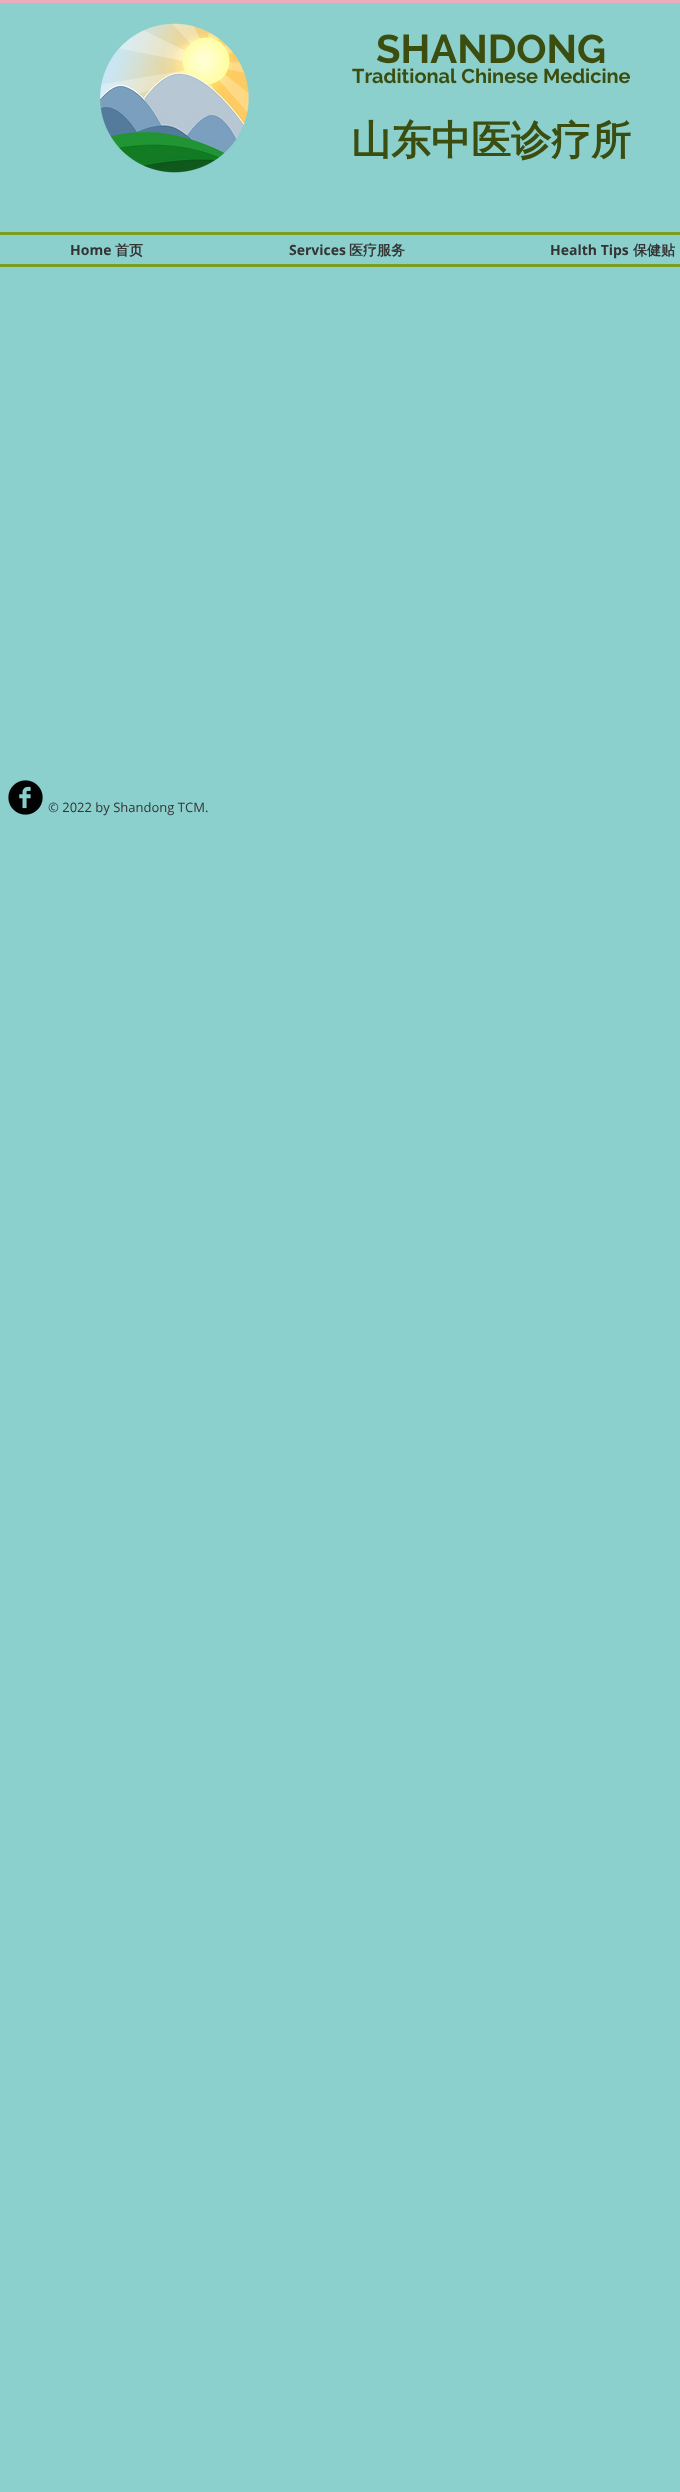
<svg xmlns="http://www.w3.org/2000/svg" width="680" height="2492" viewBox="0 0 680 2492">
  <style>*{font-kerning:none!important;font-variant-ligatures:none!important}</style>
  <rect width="100%" height="100%" fill="#8bd0cd"/>
  <path d="M0 0h680v3H0z" fill="#eaadbb"/>
  <image x="100" y="23" width="149" height="150" href="img/1.png"/>
  <path d="M0 232h680v3H0z" fill="#7a9e1e"/>
  <path d="M0 264h680v3H0z" fill="#7a9e1e"/>
  <image x="8" y="780" width="35" height="35" href="img/2.png"/>
  <text x="376" y="63" font-family="Raleway" font-size="40" font-weight="bold" fill="#3b4d0f">SHANDONG</text>
  <text x="352" y="83" font-family="Raleway" font-size="20" font-weight="bold" fill="#3b4d0f">Traditional Chinese Medicine</text>
  <text x="351" y="154" font-family="WenQuanYi Zen Hei" font-size="40" font-weight="bold" fill="#3b4d0f">山东中医诊疗所</text>
  <text x="70" y="255" font-family="Open Sans" font-size="14" font-weight="bold" fill="#343434">Home</text>
  <text x="115" y="255" font-family="WenQuanYi Zen Hei" font-size="14" font-weight="bold" fill="#343434">首页</text>
  <text x="289" y="255" font-family="Open Sans" font-size="14" font-weight="bold" fill="#343434">Services</text>
  <text x="349" y="255" font-family="WenQuanYi Zen Hei" font-size="14" font-weight="bold" fill="#343434">医疗服务</text>
  <text x="550" y="255" font-family="Open Sans" font-size="14" font-weight="bold" fill="#343434">Health Tips</text>
  <text x="633" y="255" font-family="WenQuanYi Zen Hei" font-size="14" font-weight="bold" fill="#343434">保健贴</text>
  <text x="48" y="812" font-family="Open Sans" font-size="13" fill="#343434">© 2022 by Shandong TCM.</text>
</svg>
